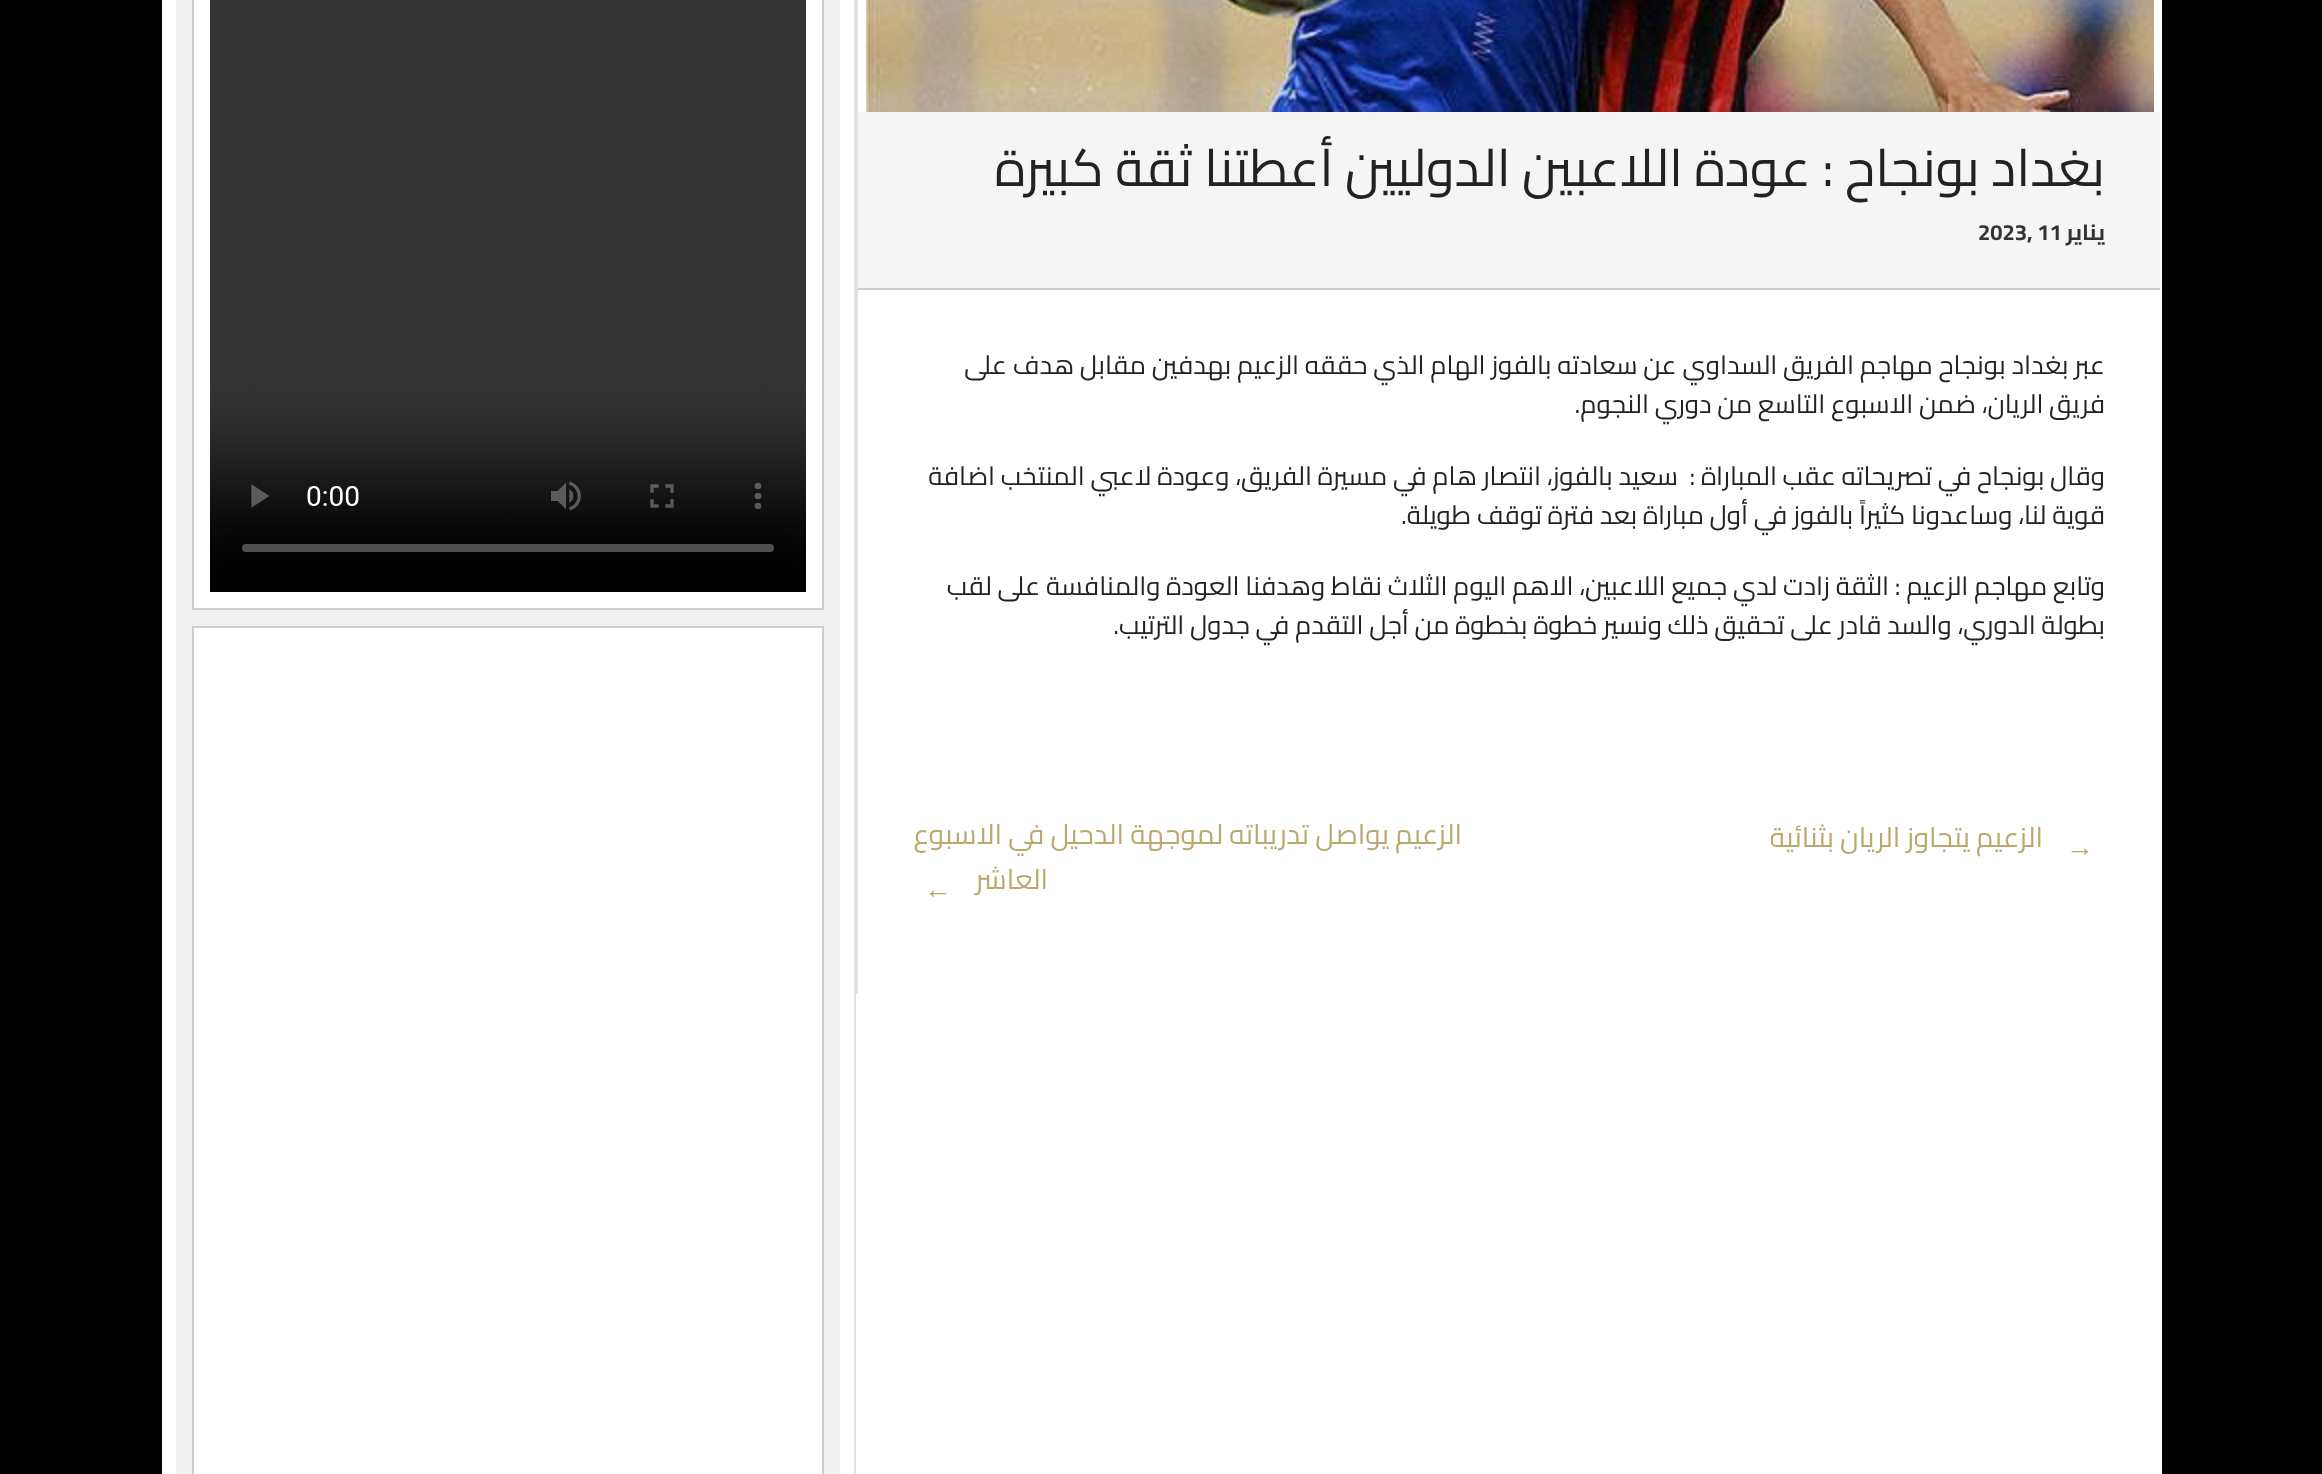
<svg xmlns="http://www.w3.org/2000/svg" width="2322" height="1474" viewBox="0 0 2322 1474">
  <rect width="100%" height="100%" fill="#000"/>
  <path d="M162 0h2000v1474H162z" fill="#fff"/>
  <path d="M856 0h2v994H856z" fill="#e0e0e0"/>
  <image x="866" y="0" width="1288" height="112" href="img/1.png"/>
  <path d="M858 112h1302v176H858z" fill="#f5f5f5"/>
  <path d="M858 288h1302v2H858z" fill="#ccc"/>
  <path d="M854 0h2v1474H854z" fill="#e0e0e0"/>
  <path d="M193 -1h630v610H193z" fill="none" stroke="#cdcdcd" stroke-width="2"/>
  <image x="210" y="0" width="596" height="592" href="img/2.png"/>
  <path d="M184 -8h648v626H184z" fill="none" stroke="#f0f0f0" stroke-width="16"/>
  <path d="M193 627h630v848H193z" fill="none" stroke="#cdcdcd" stroke-width="2"/>
  <path d="M184 618h648v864H184z" fill="none" stroke="#f0f0f0" stroke-width="16"/>
  <text x="2105" y="186" font-family="Cairo" font-size="52" direction="rtl" fill="#222">بغداد بونجاح : عودة اللاعبين الدوليين أعطتنا ثقة كبيرة</text>
  <text x="2105" y="240" font-family="Cairo" font-size="22" font-weight="bold" direction="rtl" fill="#333">يناير</text>
  <text x="1978" y="240" font-family="Cairo" font-size="22" font-weight="bold" fill="#333">2023, 11</text>
  <g font-family="Cairo" font-size="26" direction="rtl" fill="#222">
    <text x="2105" y="374">عبر بغداد بونجاح مهاجم الفريق السداوي عن سعادته بالفوز الهام الذي حققه الزعيم بهدفين مقابل هدف على</text>
    <text x="2105" y="413">فريق الريان، ضمن الاسبوع التاسع من دوري النجوم.</text>
    <text x="2105" y="485" xml:space="preserve">وقال بونجاح في تصريحاته عقب المباراة :  سعيد بالفوز، انتصار هام في مسيرة الفريق، وعودة لاعبي المنتخب اضافة</text>
    <text x="2105" y="524">قوية لنا، وساعدونا كثيراً بالفوز في أول مباراة بعد فترة توقف طويلة.</text>
    <text x="2105" y="595">وتابع مهاجم الزعيم : الثقة زادت لدي جميع اللاعبين، الاهم اليوم الثلاث نقاط وهدفنا العودة والمنافسة على لقب</text>
    <text x="2105" y="634">بطولة الدوري، والسد قادر على تحقيق ذلك ونسير خطوة بخطوة من أجل التقدم في جدول الترتيب.</text>
  </g>
  <text x="2094" y="847" transform="rotate(180 2094 847)" font-family="Liberation Serif" font-size="28" fill="#baa86d">←</text>
  <g font-family="Cairo" font-size="28" direction="rtl" fill="#baa86d">
    <text x="2043" y="847">الزعيم يتجاوز الريان بثنائية</text>
    <text x="1462" y="844">الزعيم يواصل تدريباته لموجهة الدحيل في الاسبوع</text>
    <text x="1048" y="889">العاشر</text>
  </g>
  <text x="952" y="889" transform="rotate(180 952 889)" font-family="Liberation Serif" font-size="28" fill="#baa86d">→</text>
</svg>
